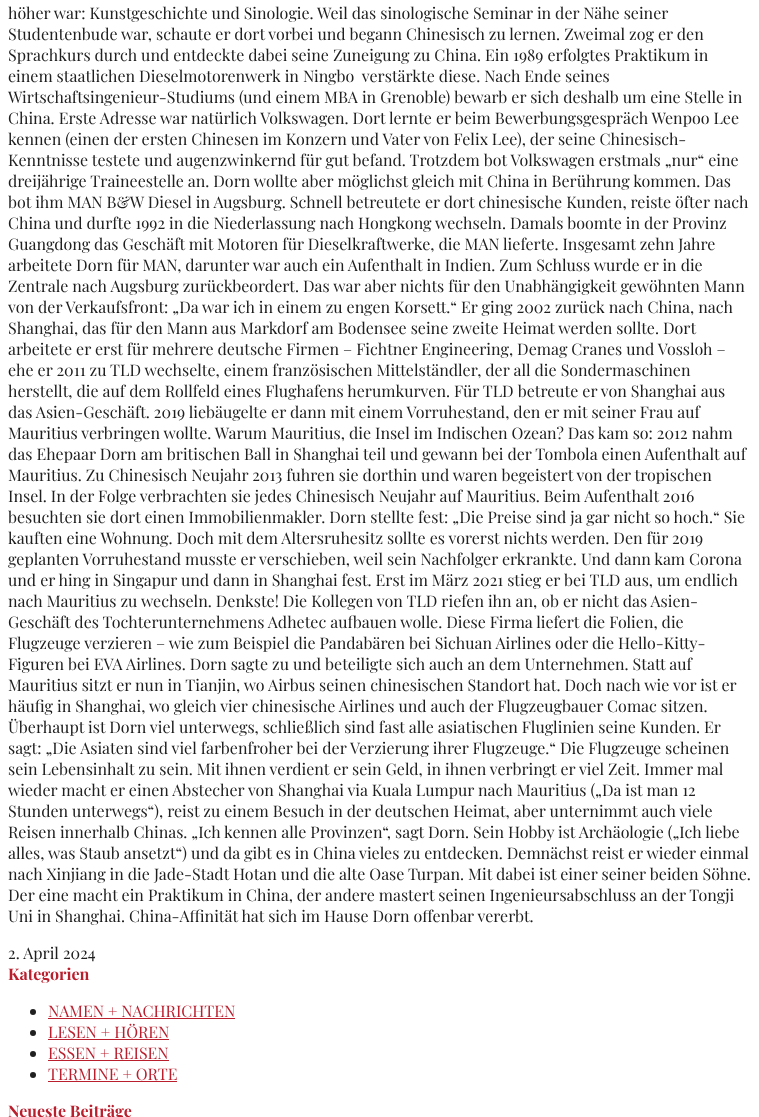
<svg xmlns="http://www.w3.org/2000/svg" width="759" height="1117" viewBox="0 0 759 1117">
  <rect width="100%" height="100%" fill="#fff"/>
  <circle cx="33" cy="1012" r="3" fill="#202020"/>
  <path d="M48 1018h187v1H48z" fill="#ba1f2e"/>
  <circle cx="33" cy="1033" r="3" fill="#202020"/>
  <path d="M48 1039h121v1H48z" fill="#ba1f2e"/>
  <circle cx="33" cy="1054" r="3" fill="#202020"/>
  <path d="M48 1060h121v1H48z" fill="#ba1f2e"/>
  <circle cx="33" cy="1075" r="3" fill="#202020"/>
  <path d="M48 1081h129v1H48z" fill="#ba1f2e"/>
  <g font-family="Playfair Display" font-size="16" fill="#202020">
    <text x="8" y="19">höher war: Kunstgeschichte und Sinologie. Weil das sinologische Seminar in der Nähe seiner</text>
    <text x="8" y="40">Studentenbude war, schaute er dort vorbei und begann Chinesisch zu lernen. Zweimal zog er den</text>
    <text x="8" y="61">Sprachkurs durch und entdeckte dabei seine Zuneigung zu China. Ein 1989 erfolgtes Praktikum in</text>
    <text x="8" y="82" xml:space="preserve">einem staatlichen Dieselmotorenwerk in Ningbo  verstärkte diese. Nach Ende seines</text>
    <text x="8" y="103">Wirtschaftsingenieur-Studiums (und einem MBA in Grenoble) bewarb er sich deshalb um eine Stelle in</text>
    <text x="8" y="124">China. Erste Adresse war natürlich Volkswagen. Dort lernte er beim Bewerbungsgespräch Wenpoo Lee</text>
    <text x="8" y="145">kennen (einen der ersten Chinesen im Konzern und Vater von Felix Lee), der seine Chinesisch-</text>
    <text x="8" y="166">Kenntnisse testete und augenzwinkernd für gut befand. Trotzdem bot Volkswagen erstmals „nur“ eine</text>
    <text x="8" y="187">dreijährige Traineestelle an. Dorn wollte aber möglichst gleich mit China in Berührung kommen. Das</text>
    <text x="8" y="208">bot ihm MAN B&amp;W Diesel in Augsburg. Schnell betreutete er dort chinesische Kunden, reiste öfter nach</text>
    <text x="8" y="229">China und durfte 1992 in die Niederlassung nach Hongkong wechseln. Damals boomte in der Provinz</text>
    <text x="8" y="250">Guangdong das Geschäft mit Motoren für Dieselkraftwerke, die MAN lieferte. Insgesamt zehn Jahre</text>
    <text x="8" y="271">arbeitete Dorn für MAN, darunter war auch ein Aufenthalt in Indien. Zum Schluss wurde er in die</text>
    <text x="8" y="292">Zentrale nach Augsburg zurückbeordert. Das war aber nichts für den Unabhängigkeit gewöhnten Mann</text>
    <text x="8" y="313">von der Verkaufsfront: „Da war ich in einem zu engen Korsett.“ Er ging 2002 zurück nach China, nach</text>
    <text x="8" y="334">Shanghai, das für den Mann aus Markdorf am Bodensee seine zweite Heimat werden sollte. Dort</text>
    <text x="8" y="355">arbeitete er erst für mehrere deutsche Firmen – Fichtner Engineering, Demag Cranes und Vossloh –</text>
    <text x="8" y="376">ehe er 2011 zu TLD wechselte, einem französischen Mittelständler, der all die Sondermaschinen</text>
    <text x="8" y="397">herstellt, die auf dem Rollfeld eines Flughafens herumkurven. Für TLD betreute er von Shanghai aus</text>
    <text x="8" y="418">das Asien-Geschäft. 2019 liebäugelte er dann mit einem Vorruhestand, den er mit seiner Frau auf</text>
    <text x="8" y="439">Mauritius verbringen wollte. Warum Mauritius, die Insel im Indischen Ozean? Das kam so: 2012 nahm</text>
    <text x="8" y="460">das Ehepaar Dorn am britischen Ball in Shanghai teil und gewann bei der Tombola einen Aufenthalt auf</text>
    <text x="8" y="481">Mauritius. Zu Chinesisch Neujahr 2013 fuhren sie dorthin und waren begeistert von der tropischen</text>
    <text x="8" y="502">Insel. In der Folge verbrachten sie jedes Chinesisch Neujahr auf Mauritius. Beim Aufenthalt 2016</text>
    <text x="8" y="523">besuchten sie dort einen Immobilienmakler. Dorn stellte fest: „Die Preise sind ja gar nicht so hoch.“ Sie</text>
    <text x="8" y="544">kauften eine Wohnung. Doch mit dem Altersruhesitz sollte es vorerst nichts werden. Den für 2019</text>
    <text x="8" y="565">geplanten Vorruhestand musste er verschieben, weil sein Nachfolger erkrankte. Und dann kam Corona</text>
    <text x="8" y="586">und er hing in Singapur und dann in Shanghai fest. Erst im März 2021 stieg er bei TLD aus, um endlich</text>
    <text x="8" y="607">nach Mauritius zu wechseln. Denkste! Die Kollegen von TLD riefen ihn an, ob er nicht das Asien-</text>
    <text x="8" y="628">Geschäft des Tochterunternehmens Adhetec aufbauen wolle. Diese Firma liefert die Folien, die</text>
    <text x="8" y="649">Flugzeuge verzieren – wie zum Beispiel die Pandabären bei Sichuan Airlines oder die Hello-Kitty-</text>
    <text x="8" y="670">Figuren bei EVA Airlines. Dorn sagte zu und beteiligte sich auch an dem Unternehmen. Statt auf</text>
    <text x="8" y="691">Mauritius sitzt er nun in Tianjin, wo Airbus seinen chinesischen Standort hat. Doch nach wie vor ist er</text>
    <text x="8" y="712">häufig in Shanghai, wo gleich vier chinesische Airlines und auch der Flugzeugbauer Comac sitzen.</text>
    <text x="8" y="733">Überhaupt ist Dorn viel unterwegs, schließlich sind fast alle asiatischen Fluglinien seine Kunden. Er</text>
    <text x="8" y="754">sagt: „Die Asiaten sind viel farbenfroher bei der Verzierung ihrer Flugzeuge.“ Die Flugzeuge scheinen</text>
    <text x="8" y="775">sein Lebensinhalt zu sein. Mit ihnen verdient er sein Geld, in ihnen verbringt er viel Zeit. Immer mal</text>
    <text x="8" y="796">wieder macht er einen Abstecher von Shanghai via Kuala Lumpur nach Mauritius („Da ist man 12</text>
    <text x="8" y="817">Stunden unterwegs“), reist zu einem Besuch in der deutschen Heimat, aber unternimmt auch viele</text>
    <text x="8" y="838">Reisen innerhalb Chinas. „Ich kennen alle Provinzen“, sagt Dorn. Sein Hobby ist Archäologie („Ich liebe</text>
    <text x="8" y="859">alles, was Staub ansetzt“) und da gibt es in China vieles zu entdecken. Demnächst reist er wieder einmal</text>
    <text x="8" y="880">nach Xinjiang in die Jade-Stadt Hotan und die alte Oase Turpan. Mit dabei ist einer seiner beiden Söhne.</text>
    <text x="8" y="901">Der eine macht ein Praktikum in China, der andere mastert seinen Ingenieursabschluss an der Tongji</text>
    <text x="8" y="922">Uni in Shanghai. China-Affinität hat sich im Hause Dorn offenbar vererbt.</text>
    <text x="8" y="959">2. April 2024</text>
  </g>
  <text x="8" y="980" font-family="Playfair Display" font-size="16" font-weight="bold" fill="#ba1f2e">Kategorien</text>
  <g font-family="Playfair Display" font-size="16" fill="#ba1f2e">
    <text x="48" y="1017">NAMEN + NACHRICHTEN</text>
    <text x="48" y="1038">LESEN + HÖREN</text>
    <text x="48" y="1059">ESSEN + REISEN</text>
    <text x="48" y="1080">TERMINE + ORTE</text>
  </g>
  <text x="8" y="1117" font-family="Playfair Display" font-size="16" font-weight="bold" fill="#ba1f2e">Neueste Beiträge</text>
</svg>
